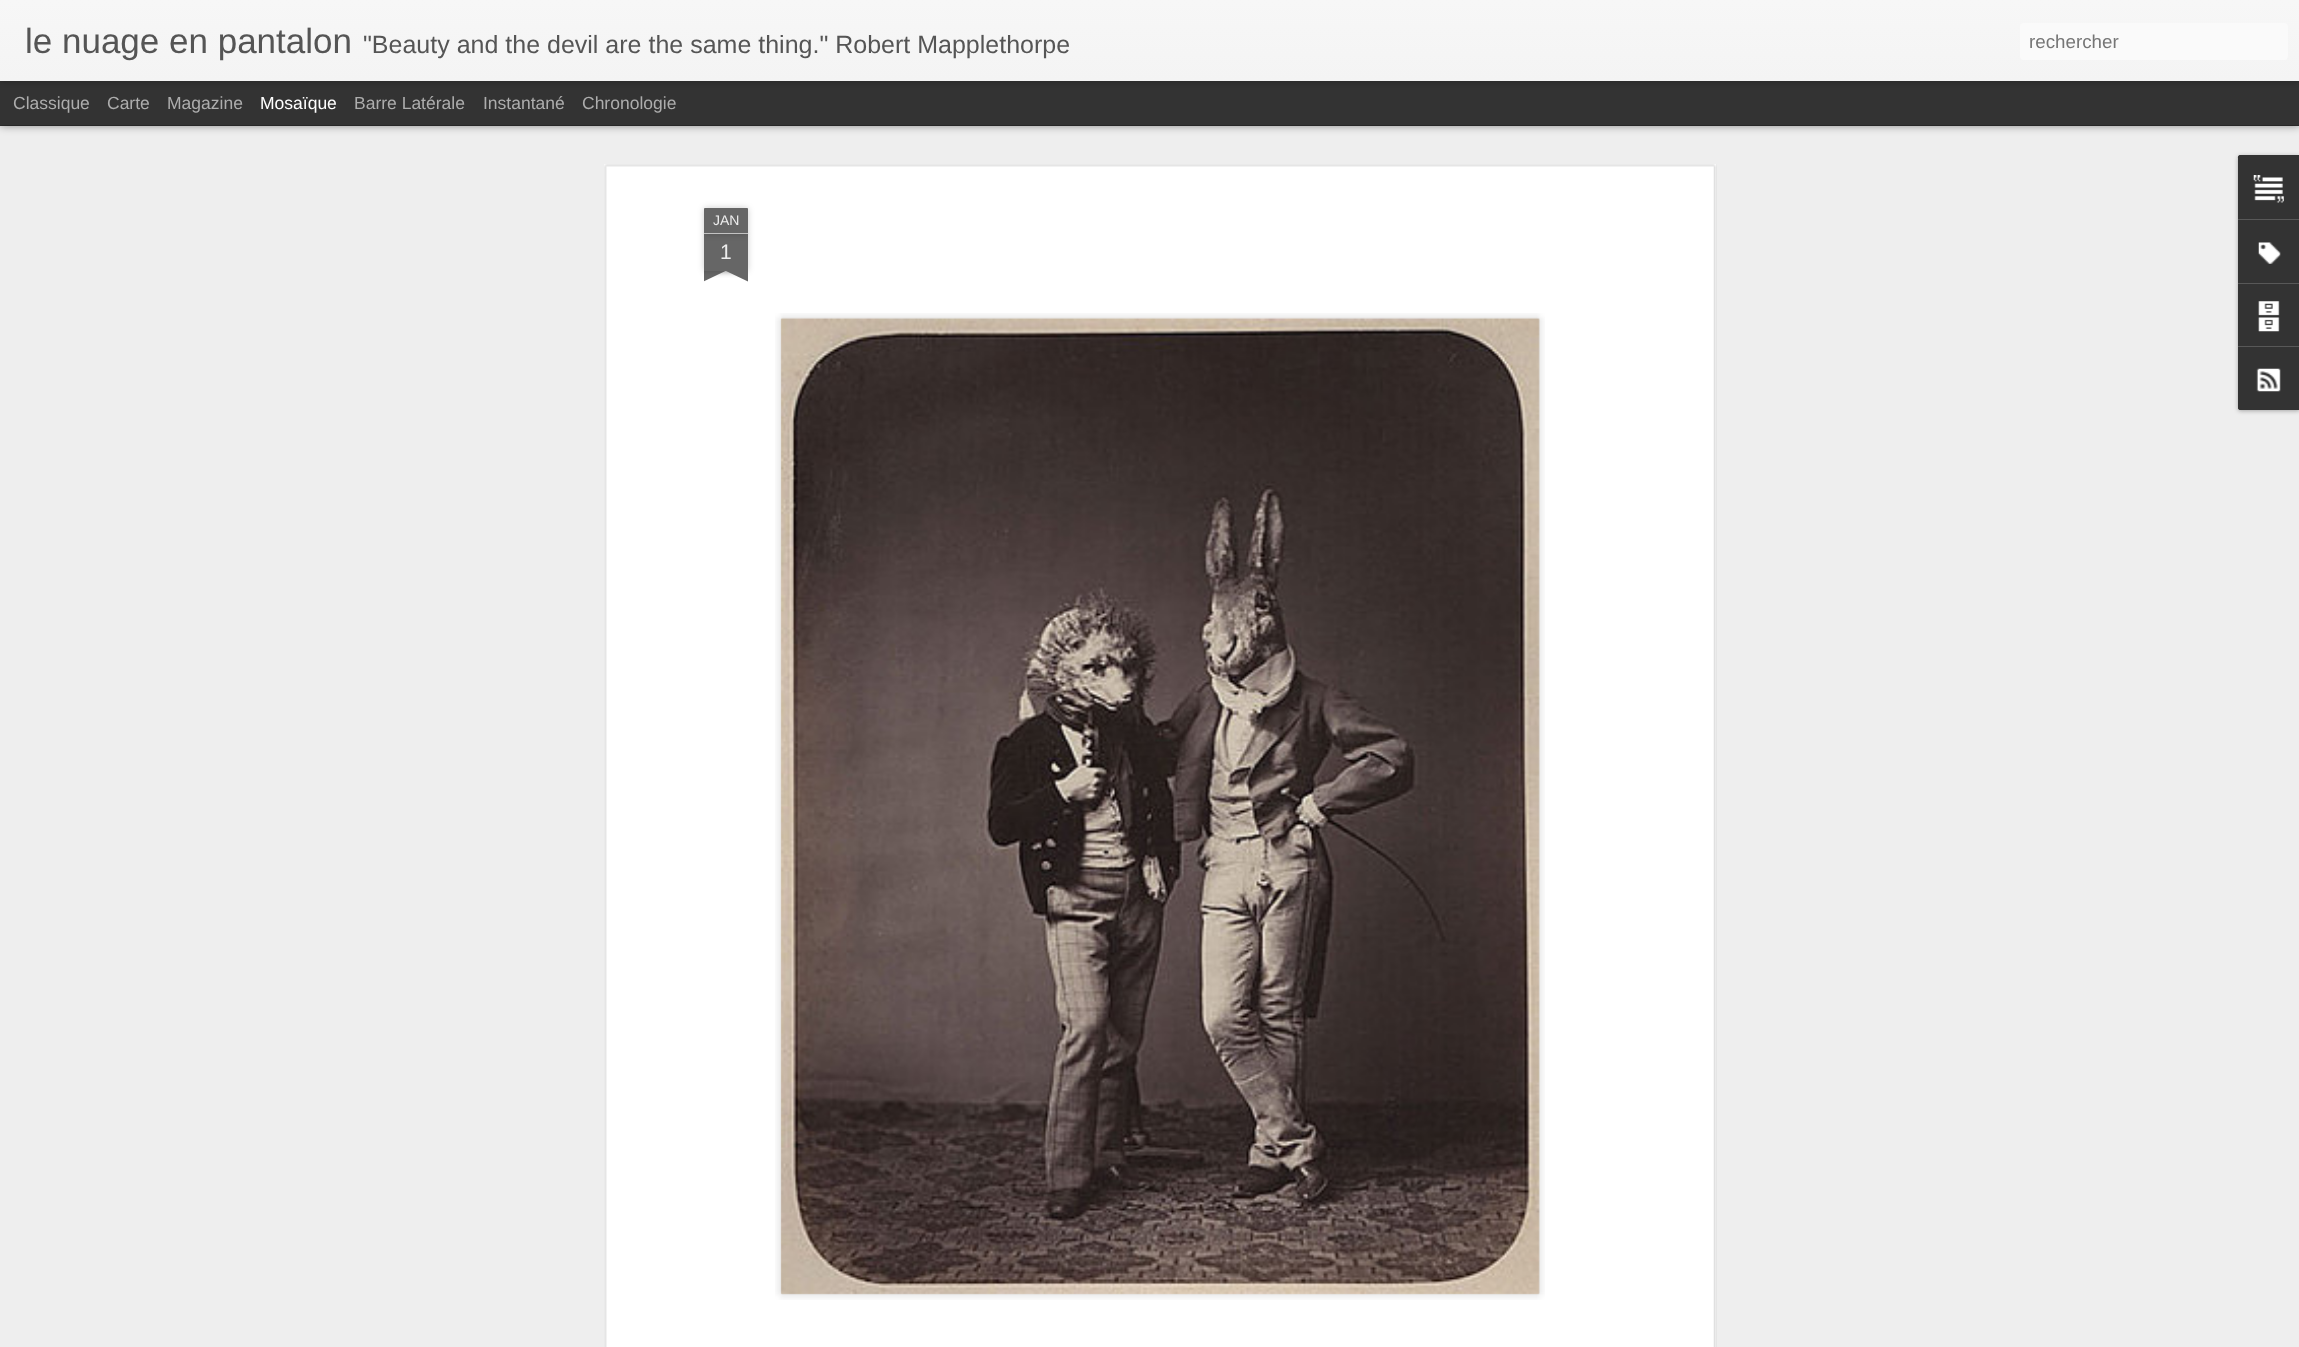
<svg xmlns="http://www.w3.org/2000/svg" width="2299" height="1347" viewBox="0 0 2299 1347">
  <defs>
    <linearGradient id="g1" gradientUnits="userSpaceOnUse" x1="0" y1="0" x2="0" y2="81"><stop offset="0" stop-color="#f7f7f7"/><stop offset="1" stop-color="#f4f4f4"/></linearGradient>
    <clipPath id="clip1"><path d="M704 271h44v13H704z"/></clipPath>
    <clipPath id="clip2"><path d="M704 271h44v13H704z"/></clipPath>
  </defs>
  <rect width="100%" height="100%" fill="#333"/>
  <path d="M0 126h2299v1221H0z" fill="#eee"/>
  <path d="M0 81h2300v44H0z" fill="#00000080" filter="blur(5px)"/>
  <path d="M0 81h2299v44H0z" fill="#333"/>
  <path d="M0 0h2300v81H0z" fill="#0000004d" filter="blur(3px)"/>
  <path d="M0 0h2299v81H0z" fill="url(#g1)"/>
  <rect x="2020" y="23" width="268" height="37" rx="4" fill="#fafafa"/>
  <path d="M604 164h1112v1183H604z" fill="#fff"/>
  <image x="604" y="164" width="1113" height="1183" href="img/1.png"/>
  <path d="M704 234h44v37H704z" fill="#00000033" filter="blur(3px)"/>
  <path d="M704 234h44v37H704z" fill="#666"/>
  <rect x="704" y="208" width="44" height="26" rx="1" fill="#00000033" filter="blur(3px)"/>
  <path d="M705 208H747C747.5 208 748 208.5 748 209V234H704V209C704 208.5 704.5 208 705 208Z" fill="#666"/>
  <path d="M704 233h44v1H704z" fill="#c2c2c2"/>
  <g clip-path="url(#clip1)">
    <path d="M693 259h62v12H693z" fill="#00000033" filter="blur(3px)"/>
  </g>
  <g clip-path="url(#clip2)">
    <path d="M693 273L749 246L755 257L698 284Z" fill="#666"/>
  </g>
  <g clip-path="url(#clip1)">
    <path d="M696 259h63v12H696z" fill="#00000033" filter="blur(3px)"/>
  </g>
  <g clip-path="url(#clip2)">
    <path d="M702 246L758 273L753 284L697 257Z" fill="#666"/>
  </g>
  <image x="775" y="313" width="770" height="987" href="img/2.png"/>
  <image x="780" y="317" width="760" height="978" href="img/3.png"/>
  <rect x="2238" y="156" width="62" height="255" rx="2.5" fill="#0000004d" filter="blur(2px)"/>
  <path d="M2240.5 155H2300V410H2240.5C2239 410 2238 409 2238 407.5V157.5C2238 156 2239 155 2240.5 155Z" fill="#333"/>
  <path d="M2240.5 155H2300V219H2238V157.5C2238 156 2239 155 2240.5 155Z" fill="#333"/>
  <image x="2253" y="175" width="31" height="28" href="img/4.png"/>
  <path d="M2238 219h61v1H2238z" fill="#585858"/>
  <image x="2258" y="242" width="23" height="22" href="img/5.png"/>
  <path d="M2238 283h61v1H2238z" fill="#585858"/>
  <image x="2258" y="301" width="22" height="31" href="img/6.png"/>
  <path d="M2238 346H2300V410H2240.5C2239 410 2238 409 2238 407.5Z" fill="#333"/>
  <path d="M2238 346h61v1H2238z" fill="#585858"/>
  <image x="2256" y="368" width="25" height="24" href="img/7.png"/>
  <text x="25" y="53" font-family="Liberation Sans" font-size="35" fill="#555">le nuage en pantalon</text>
  <text x="363" y="53" font-family="Liberation Sans" font-size="25" fill="#555">"Beauty and the devil are the same thing." Robert Mapplethorpe</text>
  <text x="2029" y="48" font-family="Liberation Sans" font-size="18.75" fill="#757575">rechercher</text>
  <g font-family="Liberation Sans" font-size="17.5" fill="#adadad">
    <text x="13" y="109">Classique</text>
    <text x="107" y="109">Carte</text>
    <text x="167" y="109">Magazine</text>
  </g>
  <text x="260" y="109" font-family="Liberation Sans" font-size="17.5" fill="#fff">Mosaïque</text>
  <g font-family="Liberation Sans" font-size="17.5" fill="#adadad">
    <text x="354" y="109">Barre Latérale</text>
    <text x="483" y="109">Instantané</text>
    <text x="582" y="109">Chronologie</text>
  </g>
  <text x="713" y="225" font-family="Liberation Sans" font-size="14" fill="#eee">JAN</text>
  <text x="720" y="259" font-family="Liberation Sans" font-size="21" fill="#eee">1</text>
</svg>
